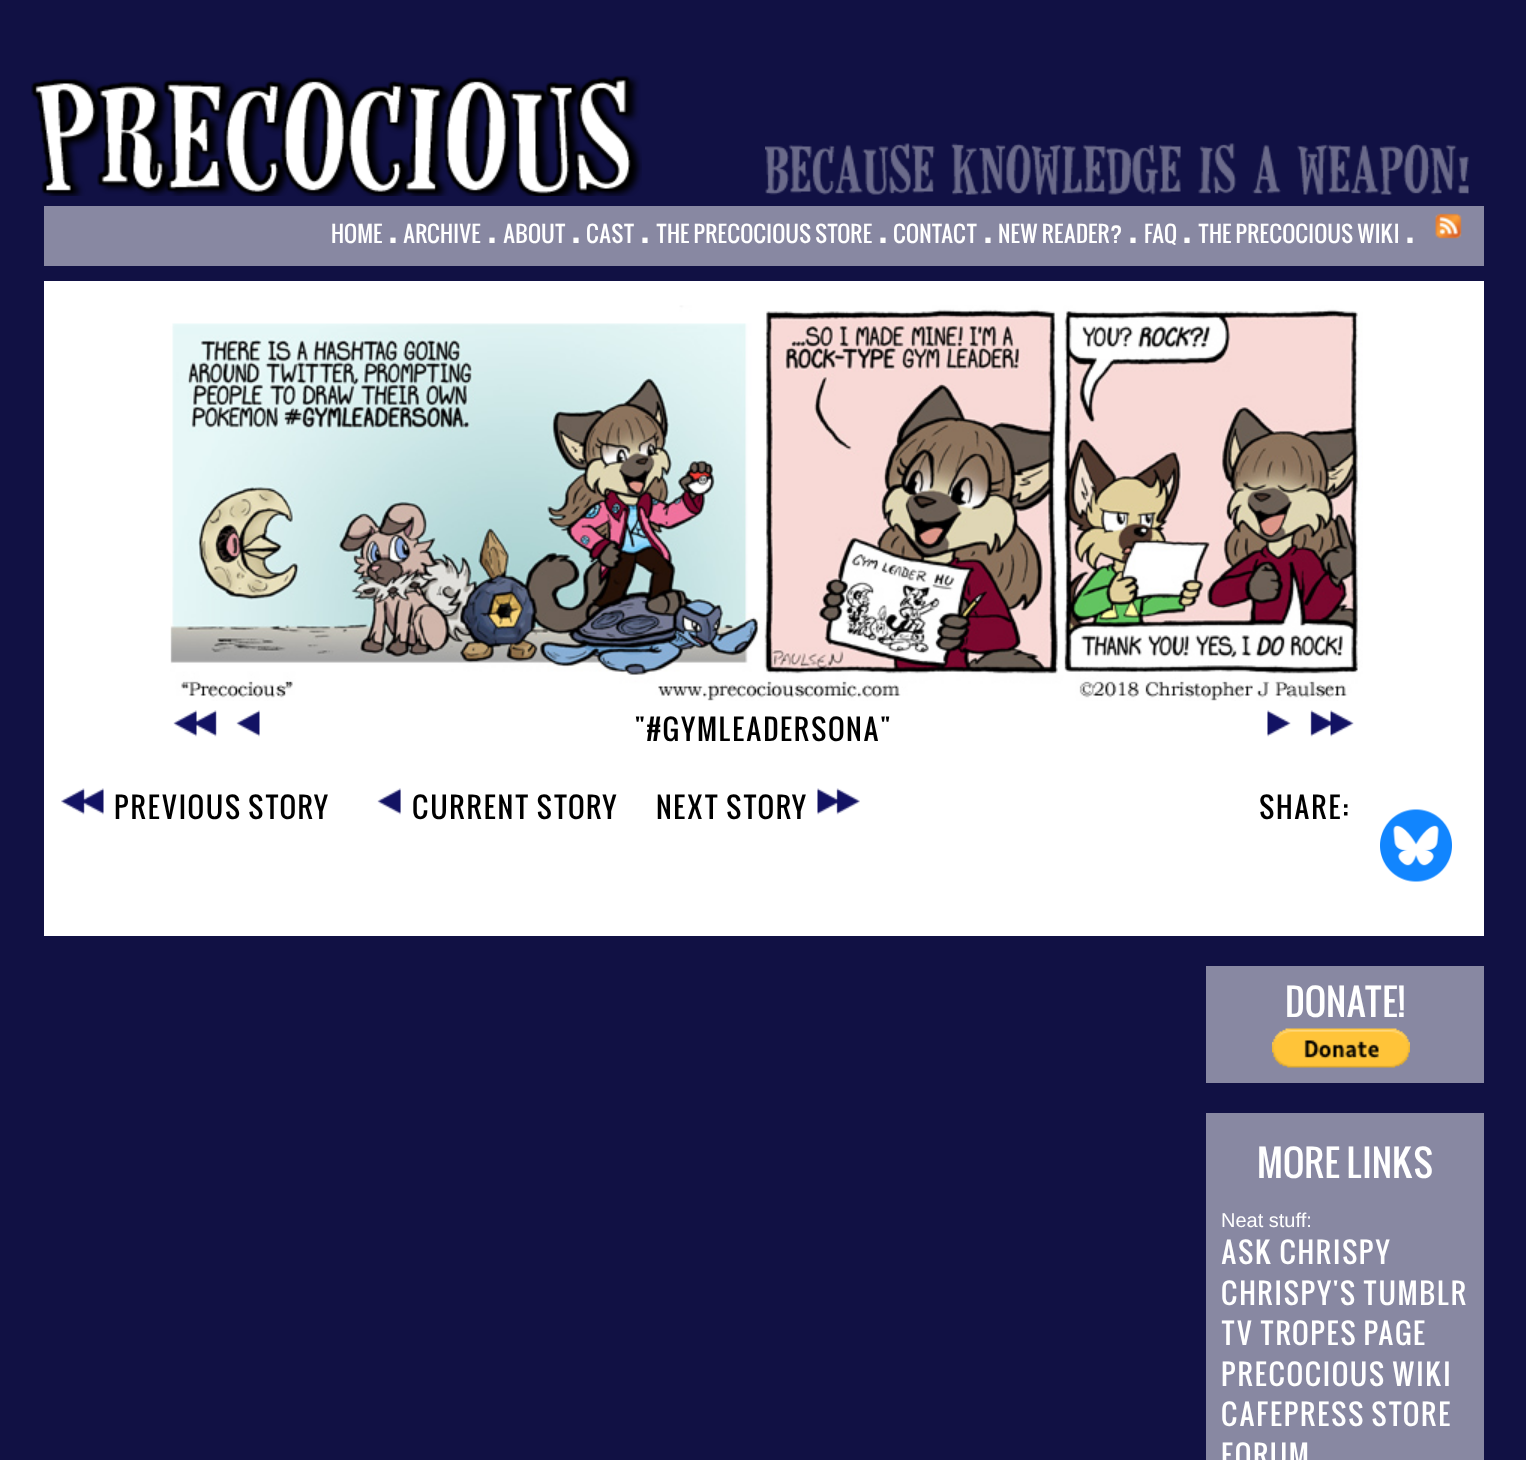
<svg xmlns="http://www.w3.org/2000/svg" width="1526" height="1460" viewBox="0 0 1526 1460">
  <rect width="100%" height="100%" fill="#114"/>
  <image x="31" y="75" width="611" height="121" href="img/1.png"/>
  <image x="765" y="143" width="704" height="52" href="img/2.png"/>
  <path d="M44 206h1440v60H44z" fill="#8888a2"/>
  <image x="1435" y="213" width="27" height="26" href="img/3.png"/>
  <path d="M44 281h1440v655H44z" fill="#fff"/>
  <image x="170" y="305" width="1193" height="396" href="img/4.png"/>
  <image x="173" y="710" width="44" height="27" href="img/5.png"/>
  <image x="236" y="710" width="24" height="27" href="img/6.png"/>
  <image x="1267" y="710" width="24" height="27" href="img/7.png"/>
  <image x="1310" y="710" width="44" height="27" href="img/8.png"/>
  <image x="61" y="788" width="43" height="27" href="img/9.png"/>
  <image x="377" y="788" width="24" height="27" href="img/10.png"/>
  <image x="817" y="788" width="43" height="27" href="img/11.png"/>
  <image x="1380" y="809" width="72" height="73" href="img/12.png"/>
  <path d="M1206 966h278v117H1206z" fill="#8888a2"/>
  <image x="1272" y="1028" width="138" height="40" href="img/13.png"/>
  <path d="M1206 1113h278v347H1206z" fill="#8888a2"/>
  <text x="331" y="243" font-family="Oswald" font-size="22" fill="#fff">HOME</text>
  <text x="388" y="243" font-family="Liberation Sans" font-size="36" font-weight="bold" fill="#fff">.</text>
  <text x="403" y="243" font-family="Oswald" font-size="22" fill="#fff">ARCHIVE</text>
  <text x="487" y="243" font-family="Liberation Sans" font-size="36" font-weight="bold" fill="#fff">.</text>
  <text x="503" y="243" font-family="Oswald" font-size="22" fill="#fff">ABOUT</text>
  <text x="571" y="243" font-family="Liberation Sans" font-size="36" font-weight="bold" fill="#fff">.</text>
  <text x="586" y="243" font-family="Oswald" font-size="22" fill="#fff">CAST</text>
  <text x="640" y="243" font-family="Liberation Sans" font-size="36" font-weight="bold" fill="#fff">.</text>
  <text x="656" y="243" font-family="Oswald" font-size="22" fill="#fff">THE PRECOCIOUS STORE</text>
  <text x="878" y="243" font-family="Liberation Sans" font-size="36" font-weight="bold" fill="#fff">.</text>
  <text x="893" y="243" font-family="Oswald" font-size="22" fill="#fff">CONTACT</text>
  <text x="983" y="243" font-family="Liberation Sans" font-size="36" font-weight="bold" fill="#fff">.</text>
  <text x="998" y="243" font-family="Oswald" font-size="22" fill="#fff">NEW READER?</text>
  <text x="1128" y="243" font-family="Liberation Sans" font-size="36" font-weight="bold" fill="#fff">.</text>
  <text x="1144" y="243" font-family="Oswald" font-size="22" fill="#fff">FAQ</text>
  <text x="1182" y="243" font-family="Liberation Sans" font-size="36" font-weight="bold" fill="#fff">.</text>
  <text x="1198" y="243" font-family="Oswald" font-size="22" fill="#fff">THE PRECOCIOUS WIKI</text>
  <text x="1405" y="243" font-family="Liberation Sans" font-size="36" font-weight="bold" fill="#fff">.</text>
  <g font-family="Oswald" font-size="28" letter-spacing="1.5" fill="#000">
    <text x="635" y="741">"#GYMLEADERSONA"</text>
    <text x="114" y="819">PREVIOUS STORY</text>
    <text x="412" y="819">CURRENT STORY</text>
    <text x="656" y="819">NEXT STORY</text>
    <text x="1259" y="819">SHARE:</text>
  </g>
  <g font-family="Oswald" font-size="36" fill="#fff">
    <text x="1285" y="1017">DONATE!</text>
    <text x="1257" y="1178">MORE LINKS</text>
  </g>
  <text x="1221" y="1227" font-family="Liberation Sans" font-size="20" fill="#fff">Neat stuff:</text>
  <g font-family="Oswald" font-size="28" letter-spacing="1.5" fill="#fff">
    <text x="1221" y="1264">ASK CHRISPY</text>
    <text x="1221" y="1305">CHRISPY'S TUMBLR</text>
    <text x="1221" y="1345">TV TROPES PAGE</text>
    <text x="1221" y="1386">PRECOCIOUS WIKI</text>
    <text x="1221" y="1426">CAFEPRESS STORE</text>
    <text x="1221" y="1467">FORUM</text>
  </g>
</svg>
